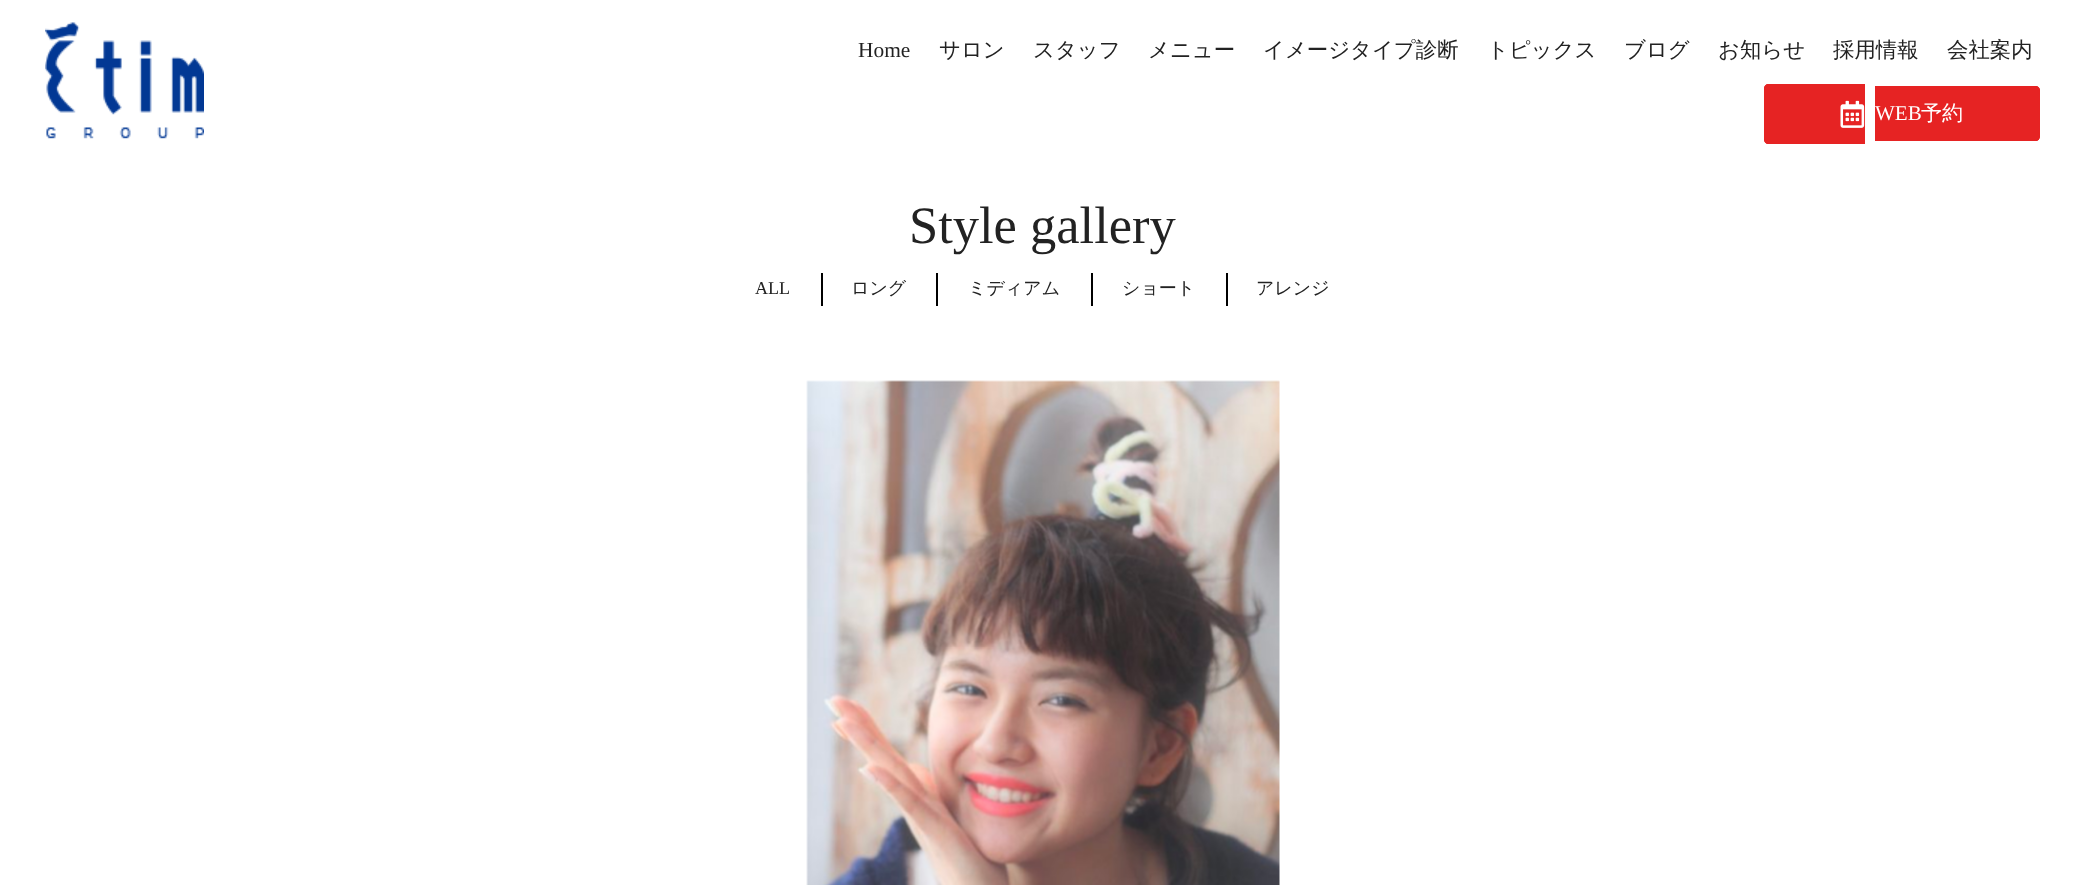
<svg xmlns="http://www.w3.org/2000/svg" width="2084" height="885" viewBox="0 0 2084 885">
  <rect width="100%" height="100%" fill="#fff"/>
  <image x="45" y="22" width="159" height="117" href="img/1.png"/>
  <path d="M1769 84H1865V144H1769C1766 144 1764 142 1764 139V89C1764 86 1766 84 1769 84Z" fill="#e62323"/>
  <path d="M1768 84H1864V144H1768C1766 144 1764 142 1764 140V88C1764 86 1766 84 1768 84ZM1768 86H1864V142H1768C1767 142 1766 141 1766 140V88C1766 87 1767 86 1768 86Z" fill="#e62323" fill-rule="evenodd"/>
  <path d="M1875 86H2035C2038 86 2040 88 2040 91V136C2040 139 2038 141 2035 141H1875Z" fill="#e62323"/>
  <path d="M1875 86H2036C2038 86 2040 88 2040 90V136C2040 139 2038 141 2036 141H1875ZM1875 87H2036C2037 87 2038 88 2038 90V136C2038 138 2037 140 2036 140H1875Z" fill="#e62323" fill-rule="evenodd"/>
  <image x="1840" y="100" width="25" height="28" href="img/2.png"/>
  <path d="M821 273h2v33H821z" fill="#000"/>
  <path d="M936 273h2v33H936z" fill="#000"/>
  <path d="M1091 273h2v33H1091z" fill="#000"/>
  <path d="M1226 273h2v33H1226z" fill="#000"/>
  <image x="806" y="380" width="474" height="505" href="img/3.png"/>
  <text x="858" y="57" font-family="Liberation Serif" font-size="21.4" fill="#222">Home</text>
  <g font-family="WenQuanYi Zen Hei" font-size="21.4" font-weight="500" fill="#222">
    <text x="939" y="57">サロン</text>
    <text x="1033" y="57">スタッフ</text>
    <text x="1148" y="57">メニュー</text>
    <text x="1263" y="57">イメージタイプ診断</text>
    <text x="1487" y="57">トピックス</text>
    <text x="1624" y="57">ブログ</text>
    <text x="1718" y="57">お知らせ</text>
    <text x="1833" y="57">採用情報</text>
    <text x="1947" y="57">会社案内</text>
  </g>
  <text x="1875" y="120" font-family="Liberation Serif" font-size="21" fill="#fff">WEB</text>
  <text x="1921" y="120" font-family="WenQuanYi Zen Hei" font-size="21" font-weight="500" fill="#fff">予約</text>
  <text x="909" y="243" font-family="Liberation Serif" font-size="52.5" fill="#222">Style gallery</text>
  <text x="755" y="294" font-family="Liberation Serif" font-size="18" fill="#222">ALL</text>
  <g font-family="WenQuanYi Zen Hei" font-size="18" font-weight="500" fill="#222">
    <text x="851" y="294">ロング</text>
    <text x="968" y="294">ミディアム</text>
    <text x="1122" y="294">ショート</text>
    <text x="1256" y="294">アレンジ</text>
  </g>
</svg>
